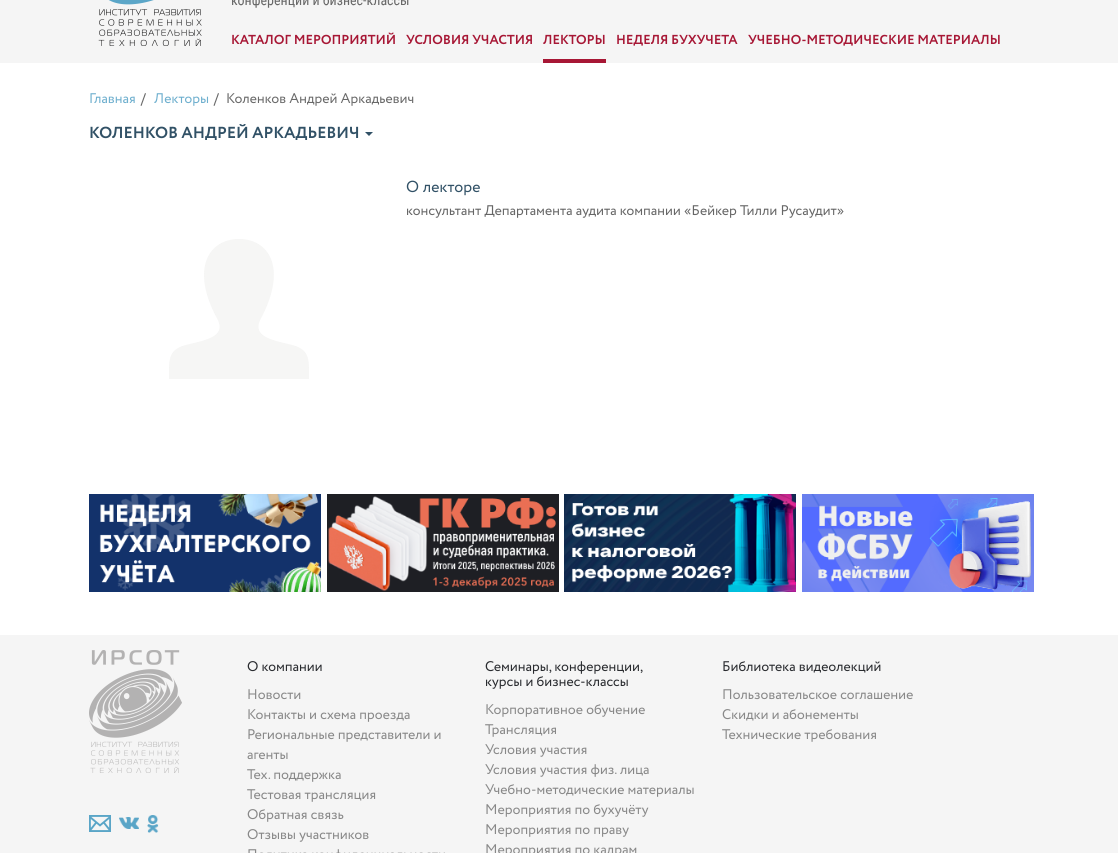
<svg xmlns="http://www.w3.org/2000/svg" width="1118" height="853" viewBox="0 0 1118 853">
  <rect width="100%" height="100%" fill="#fff"/>
  <path d="M0 0h1118v63H0z" fill="#f5f5f5"/>
  <image x="98" y="0" width="104" height="46" href="img/1.png"/>
  <image x="232" y="32" width="163" height="13" href="img/2.png"/>
  <image x="406" y="34" width="126" height="11" href="img/3.png"/>
  <path d="M543 59h63v4H543z" fill="#a71735"/>
  <image x="543" y="34" width="62" height="11" href="img/4.png"/>
  <image x="617" y="34" width="121" height="12" href="img/5.png"/>
  <image x="748" y="34" width="252" height="12" href="img/6.png"/>
  <image x="90" y="93" width="45" height="11" href="img/7.png"/>
  <path d="M140.5 105.5L141.5 106L146 93.5L145 93Z" fill="#696969"/>
  <image x="154" y="93" width="55" height="13" href="img/8.png"/>
  <path d="M213.5 105.5L214.5 106L219 93.5L218 93Z" fill="#696969"/>
  <image x="227" y="93" width="187" height="13" href="img/9.png"/>
  <image x="90" y="124" width="269" height="16" href="img/10.png"/>
  <path d="M365 132H373L369 136Z" fill="#315166"/>
  <image x="406" y="180" width="74" height="16" href="img/11.png"/>
  <image x="407" y="205" width="437" height="13" href="img/12.png"/>
  <image x="169" y="239" width="140" height="140" href="img/13.png"/>
  <image x="89" y="494" width="232" height="98" href="img/14.png"/>
  <image x="327" y="494" width="232" height="98" href="img/15.png"/>
  <image x="564" y="494" width="232" height="98" href="img/16.png"/>
  <image x="802" y="494" width="232" height="98" href="img/17.png"/>
  <path d="M0 635h1118v218H0z" fill="#f5f5f5"/>
  <image x="89" y="650" width="93" height="123" href="img/18.png"/>
  <image x="89" y="815" width="22" height="17" href="img/19.png"/>
  <image x="119" y="817" width="20" height="12" href="img/20.png"/>
  <image x="147" y="815" width="12" height="18" href="img/21.png"/>
  <image x="247" y="661" width="75" height="11" href="img/22.png"/>
  <image x="248" y="689" width="53" height="11" href="img/23.png"/>
  <image x="248" y="709" width="162" height="13" href="img/24.png"/>
  <image x="248" y="729" width="193" height="13" href="img/25.png"/>
  <image x="247" y="752" width="41" height="8" href="img/26.png"/>
  <image x="247" y="769" width="94" height="13" href="img/27.png"/>
  <image x="247" y="789" width="129" height="13" href="img/28.png"/>
  <image x="247" y="809" width="97" height="13" href="img/29.png"/>
  <image x="247" y="829" width="122" height="13" href="img/30.png"/>
  <image x="248" y="849" width="197" height="4" href="img/31.png"/>
  <image x="485" y="661" width="158" height="13" href="img/32.png"/>
  <image x="486" y="676" width="142" height="13" href="img/33.png"/>
  <image x="486" y="704" width="159" height="13" href="img/34.png"/>
  <image x="485" y="724" width="71" height="13" href="img/35.png"/>
  <image x="485" y="744" width="102" height="13" href="img/36.png"/>
  <image x="485" y="764" width="164" height="13" href="img/37.png"/>
  <image x="485" y="784" width="209" height="13" href="img/38.png"/>
  <image x="486" y="804" width="163" height="13" href="img/39.png"/>
  <image x="486" y="824" width="143" height="13" href="img/40.png"/>
  <image x="486" y="844" width="151" height="9" href="img/41.png"/>
  <image x="723" y="661" width="158" height="12" href="img/42.png"/>
  <image x="723" y="689" width="190" height="11" href="img/43.png"/>
  <image x="722" y="709" width="136" height="12" href="img/44.png"/>
  <image x="722" y="729" width="154" height="13" href="img/45.png"/>
  <text x="231" y="5" font-family="Roboto Condensed" font-size="14" fill="#696969">конференции и бизнес-классы</text>
</svg>
